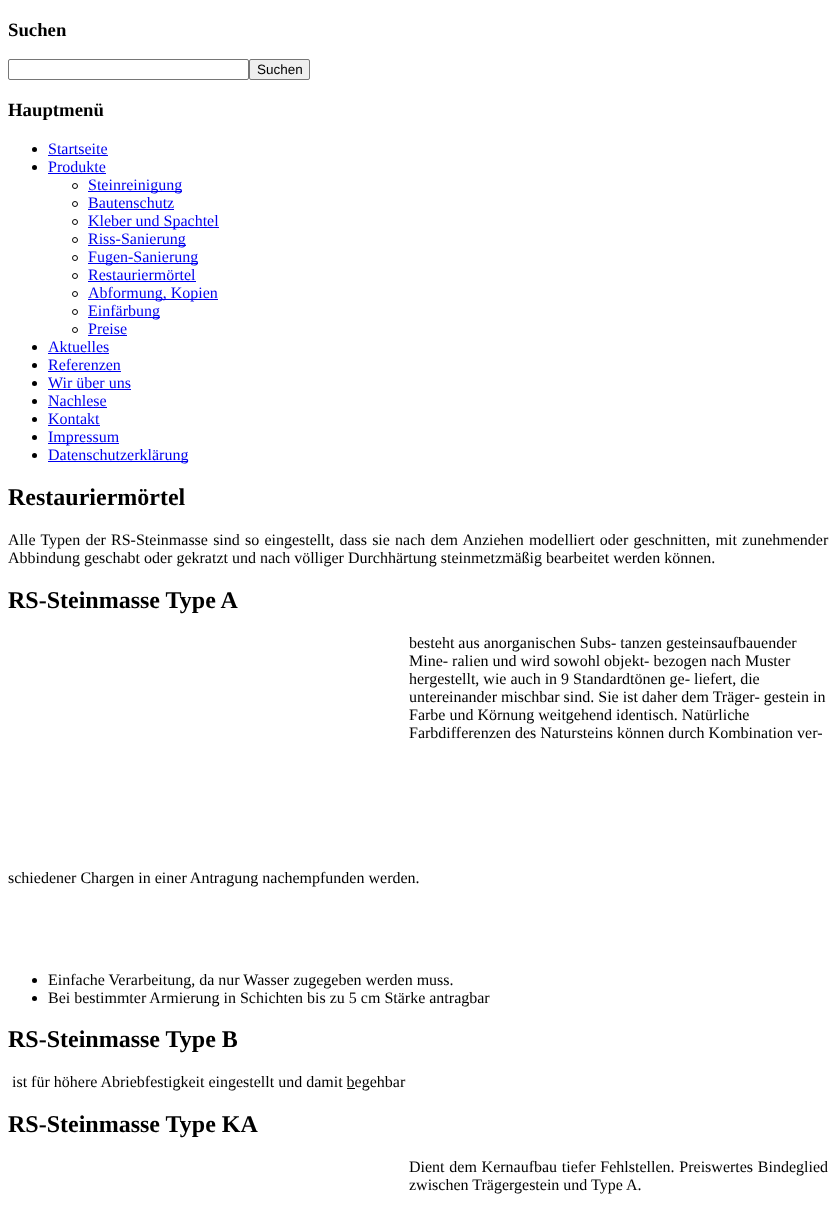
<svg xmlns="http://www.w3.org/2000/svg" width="836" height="1230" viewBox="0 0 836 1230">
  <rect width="100%" height="100%" fill="#fff"/>
  <rect x="8.5" y="59.5" width="240" height="20" rx="1.5" fill="none" stroke="#767676"/>
  <rect x="249.5" y="59.5" width="60" height="20" rx="1.5" fill="#efefef" stroke="#767676"/>
  <circle cx="34.5" cy="149.5" r="2.5" fill="#000"/>
  <path d="M48 155h60v1H48z" fill="#00e"/>
  <circle cx="34.5" cy="167.5" r="2.5" fill="#000"/>
  <path d="M48 173h58v1H48z" fill="#00e"/>
  <circle cx="75" cy="186" r="2.5" fill="none" stroke="#000"/>
  <path d="M88 191h94v1H88z" fill="#00e"/>
  <circle cx="75" cy="204" r="2.5" fill="none" stroke="#000"/>
  <path d="M88 209h86v1H88z" fill="#00e"/>
  <circle cx="75" cy="222" r="2.5" fill="none" stroke="#000"/>
  <path d="M88 227h131v1H88z" fill="#00e"/>
  <circle cx="75" cy="240" r="2.5" fill="none" stroke="#000"/>
  <path d="M88 245h98v1H88z" fill="#00e"/>
  <circle cx="75" cy="258" r="2.5" fill="none" stroke="#000"/>
  <path d="M88 263h110v1H88z" fill="#00e"/>
  <circle cx="75" cy="276" r="2.5" fill="none" stroke="#000"/>
  <path d="M88 281h108v1H88z" fill="#00e"/>
  <circle cx="75" cy="294" r="2.5" fill="none" stroke="#000"/>
  <path d="M88 299h130v1H88z" fill="#00e"/>
  <circle cx="75" cy="312" r="2.5" fill="none" stroke="#000"/>
  <path d="M88 317h72v1H88z" fill="#00e"/>
  <circle cx="75" cy="330" r="2.5" fill="none" stroke="#000"/>
  <path d="M88 335h39v1H88z" fill="#00e"/>
  <circle cx="34.5" cy="347.5" r="2.5" fill="#000"/>
  <path d="M48 353h61v1H48z" fill="#00e"/>
  <circle cx="34.5" cy="365.5" r="2.5" fill="#000"/>
  <path d="M48 371h73v1H48z" fill="#00e"/>
  <circle cx="34.5" cy="383.5" r="2.5" fill="#000"/>
  <path d="M48 389h83v1H48z" fill="#00e"/>
  <circle cx="34.5" cy="401.5" r="2.5" fill="#000"/>
  <path d="M48 407h59v1H48z" fill="#00e"/>
  <circle cx="34.5" cy="419.5" r="2.5" fill="#000"/>
  <path d="M48 425h52v1H48z" fill="#00e"/>
  <circle cx="34.5" cy="437.5" r="2.5" fill="#000"/>
  <path d="M48 443h71v1H48z" fill="#00e"/>
  <circle cx="34.5" cy="455.5" r="2.5" fill="#000"/>
  <path d="M48 461h140v1H48z" fill="#00e"/>
  <circle cx="34.5" cy="980.5" r="2.5" fill="#000"/>
  <circle cx="34.5" cy="998.5" r="2.5" fill="#000"/>
  <path d="M347 1088h8v1H347z" fill="#000"/>
  <text x="8" y="36" font-family="Liberation Serif" font-size="18.75" font-weight="bold" fill="#000">Suchen</text>
  <text x="257" y="74" font-family="Liberation Sans" font-size="13.5" fill="#000">Suchen</text>
  <text x="8" y="116" font-family="Liberation Serif" font-size="18.75" font-weight="bold" fill="#000">Hauptmenü</text>
  <g font-family="Liberation Serif" font-size="16" fill="#00e">
    <text x="48" y="154">Startseite</text>
    <text x="48" y="172">Produkte</text>
    <text x="88" y="190">Steinreinigung</text>
    <text x="88" y="208">Bautenschutz</text>
    <text x="88" y="226">Kleber und Spachtel</text>
    <text x="88" y="244">Riss-Sanierung</text>
    <text x="88" y="262">Fugen-Sanierung</text>
    <text x="88" y="280">Restauriermörtel</text>
    <text x="88" y="298">Abformung, Kopien</text>
    <text x="88" y="316">Einfärbung</text>
    <text x="88" y="334">Preise</text>
    <text x="48" y="352">Aktuelles</text>
    <text x="48" y="370">Referenzen</text>
    <text x="48" y="388">Wir über uns</text>
    <text x="48" y="406">Nachlese</text>
    <text x="48" y="424">Kontakt</text>
    <text x="48" y="442">Impressum</text>
    <text x="48" y="460">Datenschutzerklärung</text>
  </g>
  <text x="8" y="505" font-family="Liberation Serif" font-size="24" font-weight="bold" fill="#000">Restauriermörtel</text>
  <g font-family="Liberation Serif" font-size="16" fill="#000">
    <text x="8" y="545" word-spacing="1.2">Alle Typen der RS-Steinmasse sind so eingestellt, dass sie nach dem Anziehen modelliert oder geschnitten, mit zunehmender</text>
    <text x="8" y="563">Abbindung geschabt oder gekratzt und nach völliger Durchhärtung steinmetzmäßig bearbeitet werden können.</text>
  </g>
  <text x="8" y="608" font-family="Liberation Serif" font-size="24" font-weight="bold" fill="#000">RS-Steinmasse Type A</text>
  <g font-family="Liberation Serif" font-size="16" fill="#000">
    <text x="409" y="648">besteht aus anorganischen Subs- tanzen gesteinsaufbauender</text>
    <text x="409" y="666">Mine- ralien und wird sowohl objekt- bezogen nach Muster</text>
    <text x="409" y="684">hergestellt, wie auch in 9 Standardtönen ge- liefert, die</text>
    <text x="409" y="702">untereinander mischbar sind. Sie ist daher dem Träger- gestein in</text>
    <text x="409" y="720">Farbe und Körnung weitgehend identisch. Natürliche</text>
    <text x="409" y="738">Farbdifferenzen des Natursteins können durch Kombination ver-</text>
    <text x="8" y="883">schiedener Chargen in einer Antragung nachempfunden werden.</text>
    <text x="48" y="985">Einfache Verarbeitung, da nur Wasser zugegeben werden muss.</text>
    <text x="48" y="1003">Bei bestimmter Armierung in Schichten bis zu 5 cm Stärke antragbar</text>
  </g>
  <text x="8" y="1047" font-family="Liberation Serif" font-size="24" font-weight="bold" fill="#000">RS-Steinmasse Type B</text>
  <text x="12" y="1087" font-family="Liberation Serif" font-size="16" fill="#000">ist für höhere Abriebfestigkeit eingestellt und damit begehbar</text>
  <text x="8" y="1132" font-family="Liberation Serif" font-size="24" font-weight="bold" fill="#000">RS-Steinmasse Type KA</text>
  <g font-family="Liberation Serif" font-size="16" fill="#000">
    <text x="409" y="1172" word-spacing="0.75">Dient dem Kernaufbau tiefer Fehlstellen. Preiswertes Bindeglied</text>
    <text x="409" y="1190">zwischen Trägergestein und Type A.</text>
  </g>
</svg>
